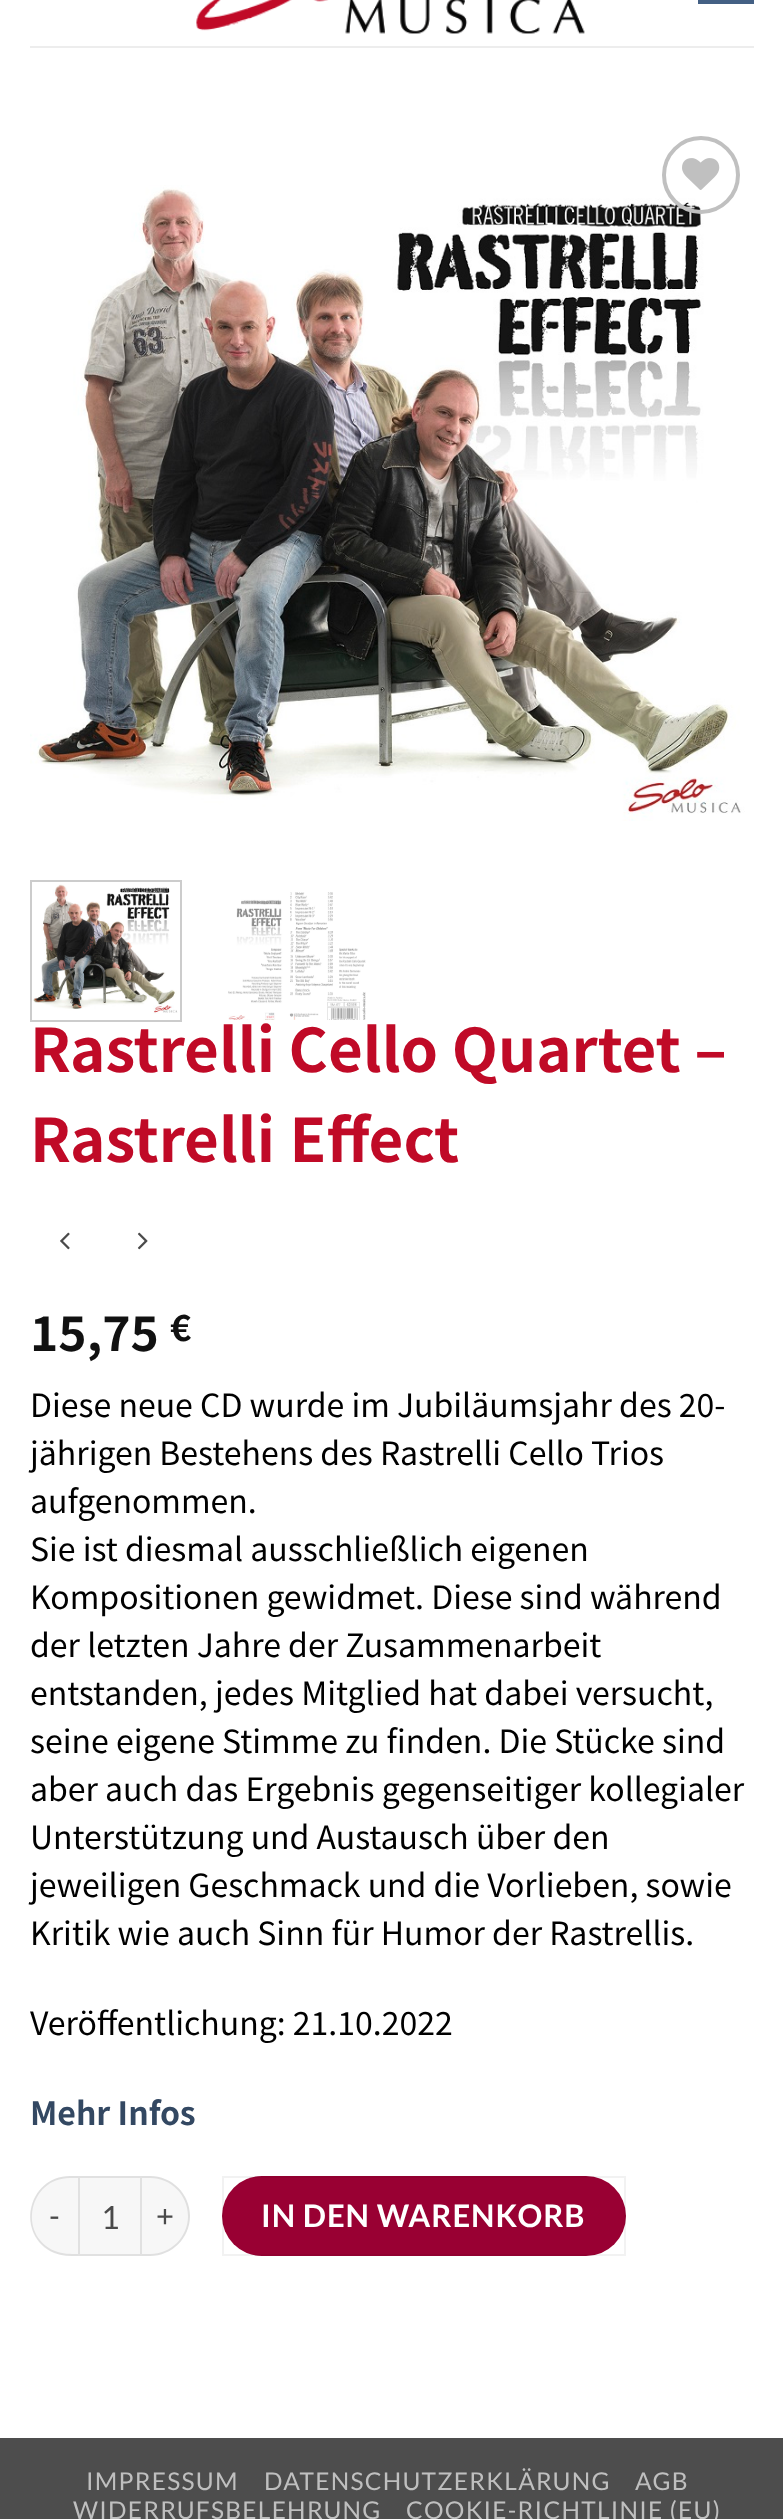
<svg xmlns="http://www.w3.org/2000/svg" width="783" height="2519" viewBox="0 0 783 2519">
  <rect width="100%" height="100%" fill="#fff"/>
  <image x="196" y="0" width="389" height="34" href="img/1.png"/>
  <path d="M700 -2h52v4H700z" fill="none" stroke="#446084" stroke-width="4"/>
  <path d="M30 46h724v2H30z" fill="#ededed"/>
  <image x="30" y="185" width="715" height="636" href="img/3.png"/>
  <circle cx="701" cy="175" r="37" fill="none" stroke="#c0c0c0" stroke-width="4"/>
  <image x="682" y="158" width="38" height="32" href="img/2.png"/>
  <path d="M31 881h150v140H31z" fill="none" stroke="#ccc" stroke-width="2"/>
  <image x="33" y="884" width="145" height="130" href="img/4.png"/>
  <image x="228" y="892" width="138" height="128" href="img/5.png"/>
  <image x="60" y="1232" width="10" height="18" href="img/6.png"/>
  <image x="137" y="1232" width="11" height="18" href="img/7.png"/>
  <path d="M70 2176H78V2256H70C48 2256 30 2238 30 2216C30 2194 48 2176 70 2176Z" fill="#f7f7f7"/>
  <path d="M70 2176H78V2256C70 2256 62 2256 54 2253C15 2236 27 2176 70 2176ZM70 2178H78V2254C70 2254 63 2254 55 2251C17 2235 29 2178 70 2178Z" fill="#00000017" fill-rule="evenodd"/>
  <path d="M79 2177h62v78H79z" fill="#f7f7f7" stroke="#e1e1e1" stroke-width="2"/>
  <path d="M142 2176H150C172 2176 190 2194 190 2216C190 2238 172 2256 150 2256H142Z" fill="#f7f7f7"/>
  <path d="M142 2176H150C172 2176 190 2194 190 2216C190 2238 172 2256 150 2256H142ZM142 2178H150C171 2178 188 2195 188 2216C188 2237 171 2254 150 2254H142Z" fill="#00000017" fill-rule="evenodd"/>
  <rect x="222" y="2176" width="404" height="80" rx="40" fill="#903"/>
  <path d="M223 2177h402v78H223z" fill="none" stroke="#0000000d" stroke-width="2"/>
  <path d="M0 2438h783v81H0z" fill="#4d4d4d"/>
  <g font-family="Noto Sans JP" font-size="60" font-weight="bold" fill="#c00a27">
    <text x="30" y="1072">Rastrelli Cello Quartet –</text>
    <text x="30" y="1162" word-spacing="1">Rastrelli Effect</text>
  </g>
  <text x="30" y="1351" font-family="Noto Sans JP" font-size="48" font-weight="bold" fill="#111">15,75</text>
  <text x="170" y="1341" font-family="Noto Sans JP" font-size="36" font-weight="bold" fill="#111">€</text>
  <g font-family="Noto Sans JP" font-size="32" fill="#000">
    <text x="30" y="1417">Diese neue CD wurde im Jubiläumsjahr des 20-</text>
    <text x="30" y="1465">jährigen Bestehens des Rastrelli Cello Trios</text>
    <text x="30" y="1513">aufgenommen.</text>
    <text x="30" y="1561">Sie ist diesmal ausschließlich eigenen</text>
    <text x="30" y="1609">Kompositionen gewidmet. Diese sind während</text>
    <text x="30" y="1657">der letzten Jahre der Zusammenarbeit</text>
    <text x="30" y="1705">entstanden, jedes Mitglied hat dabei versucht,</text>
    <text x="30" y="1753">seine eigene Stimme zu finden. Die Stücke sind</text>
    <text x="30" y="1801">aber auch das Ergebnis gegenseitiger kollegialer</text>
    <text x="30" y="1849">Unterstützung und Austausch über den</text>
    <text x="30" y="1897">jeweiligen Geschmack und die Vorlieben, sowie</text>
    <text x="30" y="1945">Kritik wie auch Sinn für Humor der Rastrellis.</text>
    <text x="30" y="2035">Veröffentlichung: 21.10.2022</text>
  </g>
  <text x="30" y="2125" font-family="Noto Sans JP" font-size="32" font-weight="bold" fill="#334862">Mehr Infos</text>
  <text x="49" y="2227" font-family="Lato" font-size="31" letter-spacing="0.9" fill="#4a4a4a">-</text>
  <text x="101" y="2229" font-family="Lato" font-size="32" fill="#4a4a4a">1</text>
  <text x="156" y="2227" font-family="Lato" font-size="31" letter-spacing="0.9" fill="#4a4a4a">+</text>
  <text x="261" y="2227" font-family="Lato" font-size="31" font-weight="bold" letter-spacing="0.9" fill="#fff">IN DEN WARENKORB</text>
  <g font-family="Lato" font-size="24.5" letter-spacing="1.25" fill="#bfbfbf">
    <text x="86" y="2490">IMPRESSUM</text>
    <text x="264" y="2490">DATENSCHUTZERKLÄRUNG</text>
    <text x="635" y="2490">AGB</text>
    <text x="73" y="2519">WIDERRUFSBELEHRUNG</text>
    <text x="406" y="2519">COOKIE-RICHTLINIE (EU)</text>
  </g>
</svg>
